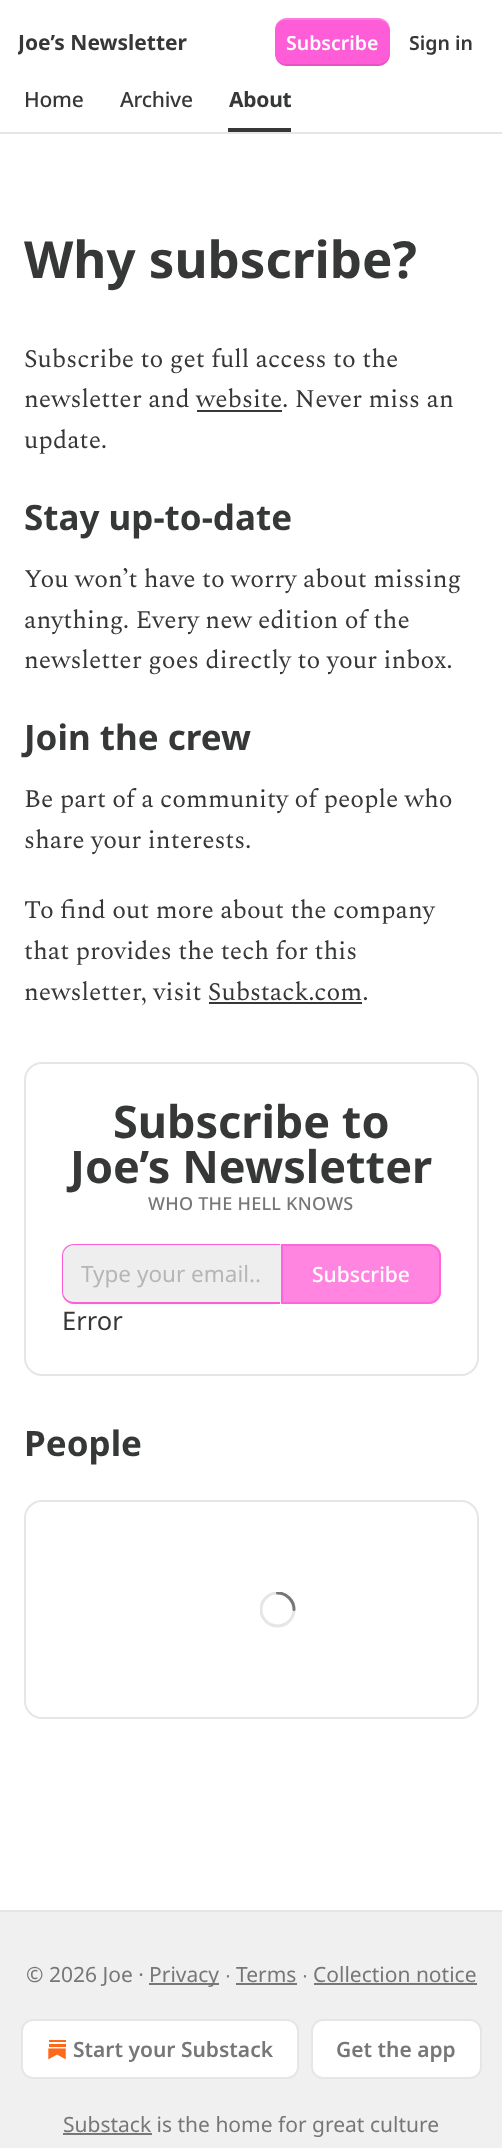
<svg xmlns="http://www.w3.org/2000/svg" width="502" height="2148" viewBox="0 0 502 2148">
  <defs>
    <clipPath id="clip1"><path d="M260 1592h36v36H260z"/></clipPath>
    <clipPath id="clip2"><path d="M18 18h170v48H18z"/></clipPath>
  </defs>
  <rect width="100%" height="100%" fill="#fff"/>
  <rect x="275" y="18" width="115" height="48" rx="12" fill="#ff5cd7"/>
  <path d="M276 58C277 63 282 66 287 66H378C385 66 390 61 390 54V52C390 59 385 64 378 64H286C282 64 278 62 276 58Z" fill="#0000001a"/>
  <path d="M286 20H378C385 20 390 25 390 32V30C390 23 385 18 378 18H287C282 18 277 21 276 26C278 22 282 20 286 20Z" fill="#ffffff33"/>
  <path d="M0 132h502v2H0z" fill="#e6e6e6"/>
  <path d="M228 128h63v4H228z" fill="#363737"/>
  <path d="M197 410h85v2H197z" fill="#363737"/>
  <path d="M209 1002h153v2H209z" fill="#363737"/>
  <rect x="25" y="1063" width="453" height="312" rx="17" fill="none" stroke="#e6e6e6" stroke-width="2"/>
  <rect x="62" y="1245" width="219" height="60" rx="12" fill="#0000000d" filter="blur(1.5px)"/>
  <path d="M74 1245H281V1302H74C68 1302 63 1297 63 1291V1256C63 1250 68 1245 74 1245Z" fill="#eee"/>
  <path d="M74 1244H280V1304H74C67 1304 62 1298 62 1292V1256C62 1249 67 1244 74 1244ZM74 1245H280V1302H74C68 1302 63 1297 63 1292V1256C63 1250 68 1245 74 1245Z" fill="#ff5cd7" fill-rule="evenodd"/>
  <path d="M281 1244H429C435.5 1244 441 1249.5 441 1256V1292C441 1298.5 435.5 1304 429 1304H281Z" fill="#ff5cd7bf"/>
  <path d="M282 1245H429C435 1245 440 1250 440 1256V1292C440 1298 435 1303 429 1303H282Z" fill="none" stroke="#ff5cd7bf" stroke-width="2"/>
  <rect x="25" y="1501" width="453" height="217" rx="17" fill="none" stroke="#e6e6e6" stroke-width="2"/>
  <g clip-path="url(#clip1)">
    <circle cx="277.5" cy="1609.5" r="16.5" fill="none" stroke="#e6e6e6" stroke-width="3"/>
    <path d="M277.5 1593C286.5 1593 294 1600.5 294 1609.5" fill="none" stroke="#777" stroke-width="3" stroke-linecap="round"/>
  </g>
  <path d="M0 1912h502v236H0z" fill="#f0f0f0"/>
  <path d="M0 1910h502v2H0z" fill="#e6e6e6"/>
  <path d="M149 1983h70v2H149z" fill="#777"/>
  <path d="M236 1983h61v2H236z" fill="#777"/>
  <path d="M314 1983h163v2H314z" fill="#777"/>
  <rect x="22" y="2020" width="276" height="58" rx="11" fill="#fff" stroke="#e6e6e6" stroke-width="2"/>
  <image x="48" y="2040" width="18" height="20" href="img/1.png"/>
  <rect x="312" y="2020" width="169" height="58" rx="11" fill="#fff" stroke="#e6e6e6" stroke-width="2"/>
  <path d="M63 2133h89v2H63z" fill="#777"/>
  <g clip-path="url(#clip2)">
    <text x="18" y="50" font-family="Noto Sans" font-size="21" font-weight="bold" fill="#363737">Joe’s Newsletter</text>
  </g>
  <text x="286" y="50" font-family="Noto Sans" font-size="19.5" font-weight="600" fill="#fff">Subscribe</text>
  <text x="409" y="50" font-family="Noto Sans" font-size="19.5" font-weight="600" fill="#363737">Sign in</text>
  <g font-family="Noto Sans" font-size="21" font-weight="500" letter-spacing="-0.25" fill="#363737">
    <text x="24" y="107">Home</text>
    <text x="120" y="107">Archive</text>
  </g>
  <text x="229" y="107" font-family="Noto Sans" font-size="21" font-weight="bold" letter-spacing="-0.25" fill="#363737">About</text>
  <text x="24" y="278" font-family="Noto Sans" font-size="51" font-weight="bold" fill="#363737">Why subscribe?</text>
  <g font-family="Spectral" font-size="25.5" fill="#363737">
    <text x="24" y="367">Subscribe to get full access to the</text>
    <text x="24" y="407">newsletter and website. Never miss an</text>
    <text x="24" y="448">update.</text>
  </g>
  <text x="24" y="530" font-family="Noto Sans" font-size="35" font-weight="bold" fill="#363737">Stay up-to-date</text>
  <g font-family="Spectral" font-size="25.5" fill="#363737">
    <text x="24" y="587">You won’t have to worry about missing</text>
    <text x="24" y="628">anything. Every new edition of the</text>
    <text x="24" y="668">newsletter goes directly to your inbox.</text>
  </g>
  <text x="24" y="750" font-family="Noto Sans" font-size="35" font-weight="bold" fill="#363737">Join the crew</text>
  <g font-family="Spectral" font-size="25.5" fill="#363737">
    <text x="24" y="807">Be part of a community of people who</text>
    <text x="24" y="848">share your interests.</text>
    <text x="24" y="918">To find out more about the company</text>
    <text x="24" y="959">that provides the tech for this</text>
    <text x="24" y="1000">newsletter, visit Substack.com.</text>
  </g>
  <g font-family="Noto Sans" font-size="45" font-weight="bold" fill="#363737">
    <text x="113" y="1138">Subscribe to</text>
    <text x="70" y="1183">Joe’s Newsletter</text>
  </g>
  <text x="148" y="1210" font-family="Noto Sans" font-size="18" font-weight="500" letter-spacing="0.25" fill="#777">WHO THE HELL KNOWS</text>
  <text x="81" y="1282" font-family="Noto Sans" font-size="22.5" fill="#b6b6b6">Type your email..</text>
  <text x="312" y="1282" font-family="Noto Sans" font-size="21" font-weight="500" fill="#fff">Subscribe</text>
  <text x="62" y="1330" font-family="Noto Sans" font-size="25.5" fill="#363737">Error</text>
  <text x="24" y="1456" font-family="Noto Sans" font-size="35" font-weight="bold" fill="#363737">People</text>
  <g font-family="Noto Sans" font-size="21" fill="#777">
    <text x="26" y="1982">© 2026 Joe ·</text>
    <text x="149" y="1982">Privacy</text>
  </g>
  <text x="225" y="1982" font-family="Liberation Sans" font-size="21" fill="#777">∙</text>
  <text x="236" y="1982" font-family="Noto Sans" font-size="21" fill="#777">Terms</text>
  <text x="302" y="1982" font-family="Liberation Sans" font-size="21" fill="#777">∙</text>
  <text x="313" y="1982" font-family="Noto Sans" font-size="21" fill="#777">Collection notice</text>
  <g font-family="Noto Sans" font-size="21" font-weight="600" fill="#777">
    <text x="73" y="2057">Start your Substack</text>
    <text x="336" y="2057">Get the app</text>
  </g>
  <text x="63" y="2132" font-family="Noto Sans" font-size="21" fill="#777">Substack is the home for great culture</text>
</svg>
